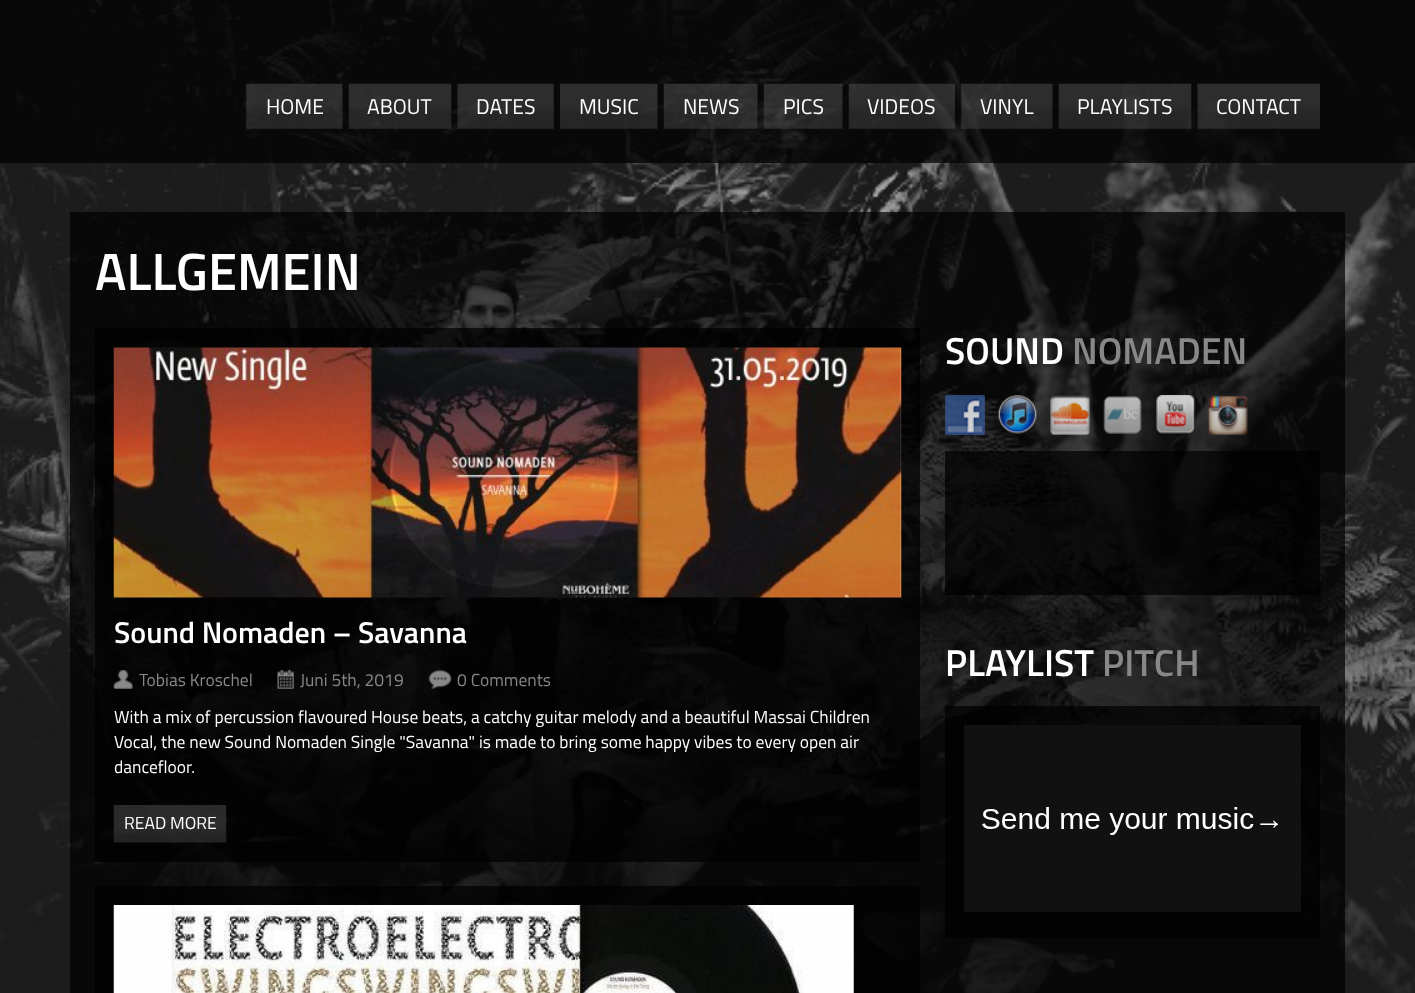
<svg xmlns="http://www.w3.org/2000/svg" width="1415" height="993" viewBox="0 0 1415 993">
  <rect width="100%" height="100%" fill="#fff"/>
  <image x="0" y="0" width="1415" height="993" href="img/1.png"/>
  <path d="M0 0h1415v163H0z" fill="#000000b3"/>
  <image x="246" y="83" width="97" height="46" href="img/2.png"/>
  <image x="348" y="83" width="104" height="46" href="img/3.png"/>
  <image x="457" y="83" width="97" height="46" href="img/4.png"/>
  <image x="560" y="83" width="98" height="46" href="img/5.png"/>
  <image x="663" y="83" width="95" height="46" href="img/6.png"/>
  <image x="763" y="83" width="80" height="46" href="img/7.png"/>
  <image x="848" y="83" width="107" height="46" href="img/8.png"/>
  <image x="961" y="83" width="92" height="46" href="img/9.png"/>
  <image x="1058" y="83" width="134" height="46" href="img/10.png"/>
  <image x="1197" y="83" width="123" height="46" href="img/11.png"/>
  <path d="M70 212h1275v781H70z" fill="#000000b3"/>
  <image x="945" y="395" width="40" height="40" href="img/12.png"/>
  <image x="997" y="395" width="41" height="39" href="img/13.png"/>
  <image x="1050" y="395" width="40" height="40" href="img/14.png"/>
  <image x="1103" y="396" width="39" height="38" href="img/15.png"/>
  <image x="1156" y="395" width="39" height="40" href="img/16.png"/>
  <image x="1208" y="396" width="40" height="39" href="img/17.png"/>
  <path d="M945 451h375v144H945z" fill="#000000b3"/>
  <path d="M945 706h375v232H945z" fill="#000000b3"/>
  <image x="964" y="725" width="337" height="187" href="img/18.png"/>
  <path d="M95 328h825v534H95z" fill="#000000b3"/>
  <image x="113" y="347" width="789" height="251" href="img/19.png"/>
  <image x="113" y="670" width="20" height="19" href="img/20.png"/>
  <image x="277" y="670" width="17" height="19" href="img/21.png"/>
  <image x="428" y="670" width="24" height="19" href="img/22.png"/>
  <image x="113" y="805" width="114" height="38" href="img/23.png"/>
  <path d="M95 886h825v107H95z" fill="#000000b3"/>
  <image x="113" y="905" width="741" height="88" href="img/24.png"/>
  <g font-family="Titillium Web" font-size="21.25" fill="#fff">
    <text x="266" y="114">HOME</text>
    <text x="367" y="114">ABOUT</text>
    <text x="476" y="114">DATES</text>
    <text x="579" y="114">MUSIC</text>
    <text x="683" y="114">NEWS</text>
    <text x="783" y="114">PICS</text>
    <text x="867" y="114">VIDEOS</text>
    <text x="980" y="114">VINYL</text>
    <text x="1077" y="114">PLAYLISTS</text>
    <text x="1216" y="114">CONTACT</text>
  </g>
  <text x="95" y="290" font-family="Titillium Web" font-size="52.5" font-weight="600" fill="#fff">ALLGEMEIN</text>
  <text x="945" y="364" font-family="Titillium Web" font-size="37.5" font-weight="600" fill="#fff">SOUND</text>
  <text x="1072" y="364" font-family="Titillium Web" font-size="37.5" font-weight="600" fill="#888">NOMADEN</text>
  <text x="945" y="676" font-family="Titillium Web" font-size="37.5" font-weight="600" fill="#fff">PLAYLIST</text>
  <text x="1102" y="676" font-family="Titillium Web" font-size="37.5" font-weight="600" fill="#888">PITCH</text>
  <text x="114" y="643" font-family="Titillium Web" font-size="30" font-weight="600" fill="#fff">Sound Nomaden – Savanna</text>
  <g font-family="Titillium Web" font-size="17.5" fill="#888">
    <text x="139" y="686">Tobias Kroschel</text>
    <text x="300" y="686">Juni 5th, 2019</text>
    <text x="457" y="686">0 Comments</text>
  </g>
  <g font-family="Titillium Web" font-size="17.5" fill="#fff">
    <text x="114" y="723">With a mix of percussion flavoured House beats, a catchy guitar melody and a beautiful Massai Children</text>
    <text x="114" y="748">Vocal, the new Sound Nomaden Single "Savanna" is made to bring some happy vibes to every open air</text>
    <text x="114" y="773">dancefloor.</text>
    <text x="124" y="829">READ MORE</text>
  </g>
</svg>
